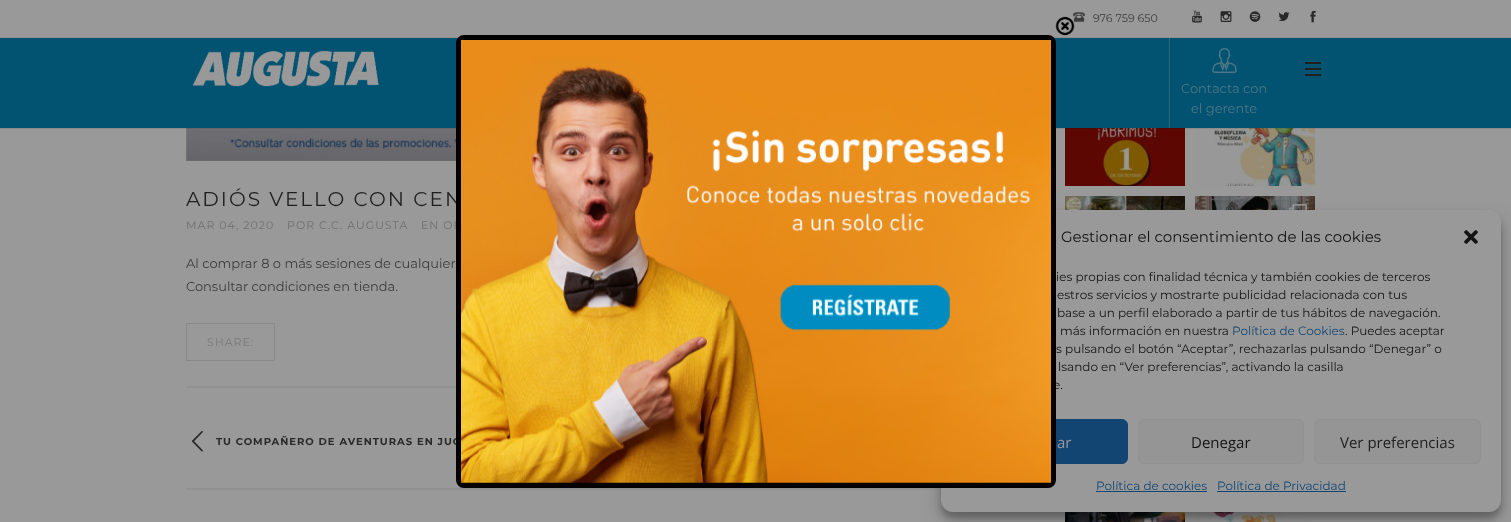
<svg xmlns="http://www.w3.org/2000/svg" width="1511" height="522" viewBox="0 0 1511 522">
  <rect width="100%" height="100%" fill="#999"/>
  <image x="186" y="128" width="270" height="33" href="img/9.png"/>
  <image x="1065" y="128" width="120" height="58" href="img/11.png"/>
  <image x="1195" y="128" width="120" height="58" href="img/12.png"/>
  <path d="M0 39h1511v90H0z" fill="#00000014" filter="blur(0.5px)"/>
  <path d="M0 37h1511v1H0z" fill="#8f8f8f"/>
  <image x="1073" y="12" width="12" height="10" href="img/1.png"/>
  <image x="1192" y="10" width="10" height="13" href="img/2.png"/>
  <image x="1220" y="11" width="12" height="11" href="img/3.png"/>
  <image x="1249" y="11" width="12" height="11" href="img/4.png"/>
  <image x="1278" y="12" width="12" height="10" href="img/5.png"/>
  <image x="1310" y="10" width="6" height="13" href="img/6.png"/>
  <path d="M0 38h1511v90H0z" fill="#015371"/>
  <image x="192" y="51" width="187" height="36" href="img/7.png"/>
  <path d="M1305 68h16v2H1305z" fill="#1f1f1f"/>
  <path d="M1305 62h16v2H1305z" fill="#1f1f1f"/>
  <path d="M1305 74h16v2H1305z" fill="#1f1f1f"/>
  <path d="M1169 38h1v90H1169z" fill="#2e687d"/>
  <image x="1212" y="48" width="25" height="25" href="img/8.png"/>
  <path d="M186.5 323.5h88v37H186.5z" fill="none" stroke="#898989"/>
  <path d="M186 386h270v2H186z" fill="#929292"/>
  <image x="191" y="430" width="12" height="22" href="img/10.png"/>
  <path d="M186 488h755v2H186z" fill="#929292"/>
  <image x="1065" y="196" width="120" height="14" href="img/13.png"/>
  <image x="1195" y="196" width="120" height="14" href="img/14.png"/>
  <image x="1289" y="204" width="18" height="6" href="img/15.png"/>
  <image x="1065" y="512" width="120" height="10" href="img/16.png"/>
  <image x="1195" y="512" width="115" height="10" href="img/17.png"/>
  <rect x="941" y="216" width="560" height="302" rx="12" fill="#0000003b" filter="blur(3px)"/>
  <rect x="941" y="220" width="560" height="302" rx="12" fill="#00000030" filter="blur(10px)"/>
  <rect x="941" y="210" width="560" height="302" rx="12" fill="#999"/>
  <image x="1464" y="230" width="14" height="14" href="img/20.png"/>
  <rect x="961.5" y="419.5" width="166" height="44" rx="5.5" fill="#124572" stroke="#124572"/>
  <rect x="1138.5" y="419.5" width="165" height="44" rx="5.5" fill="#959595" stroke="#919191"/>
  <rect x="1314.5" y="419.5" width="166" height="44" rx="5.5" fill="#959595" stroke="#919191"/>
  <path d="M1096 491h111v1H1096z" fill="#124572"/>
  <path d="M1217 491h129v1H1217z" fill="#124572"/>
  <text x="1093" y="22" font-family="Montserrat" font-size="11" fill="#3d3d3d">976 759 650</text>
  <g font-family="Montserrat" font-size="13" fill="#4d7685">
    <text x="1181" y="93">Contacta con</text>
    <text x="1191" y="113">el gerente</text>
  </g>
  <text x="186" y="206" font-family="Montserrat" font-size="20" letter-spacing="2" fill="#1f1f1f">ADIÓS VELLO CON CEN</text>
  <g font-family="Montserrat" font-size="11" letter-spacing="1" fill="#707070">
    <text x="186" y="229">MAR 04, 2020</text>
    <text x="287" y="229">POR C.C. AUGUSTA</text>
    <text x="421" y="229">EN OF</text>
  </g>
  <g font-family="Montserrat" font-size="13" fill="#3d3d3d">
    <text x="186" y="268">Al comprar 8 o más sesiones de cualquier</text>
    <text x="186" y="291">Consultar condiciones en tienda.</text>
  </g>
  <text x="207" y="346" font-family="Montserrat" font-size="11" letter-spacing="1" fill="#7a7a7a">SHARE:</text>
  <text x="216" y="445" font-family="Montserrat" font-size="10" font-weight="bold" letter-spacing="1" fill="#292929">TU COMPAÑERO DE AVENTURAS EN JUG</text>
  <text x="1061" y="242" font-family="Montserrat" font-size="15" fill="#141414">Gestionar el consentimiento de las cookies</text>
  <g font-family="Montserrat" font-size="12" fill="#141414">
    <text x="1056" y="281">ies propias con finalidad técnica y también cookies de terceros</text>
    <text x="1057" y="299">estros servicios y mostrarte publicidad relacionada con tus</text>
    <text x="1057" y="317">base a un perfil elaborado a partir de tus hábitos de navegación.</text>
    <text x="1060" y="335">más información en nuestra</text>
  </g>
  <text x="1232" y="335" font-family="Montserrat" font-size="12" fill="#124572">Política de Cookies</text>
  <g font-family="Montserrat" font-size="12" fill="#141414">
    <text x="1345" y="335">. Puedes aceptar</text>
    <text x="1056" y="353">s pulsando el botón “Aceptar”, rechazarlas pulsando “Denegar” o</text>
    <text x="1058" y="371">lsando en “Ver preferencias”, activando la casilla</text>
    <text x="1053" y="389">e.</text>
  </g>
  <rect x="457.5" y="36.5" width="597" height="450" rx="6.5" fill="#000" stroke="#000" stroke-width="3"/>
  <image x="1055" y="16" width="20" height="20" href="img/18.png"/>
  <image x="461" y="40" width="590" height="443" href="img/19.png"/>
  <text x="1057" y="448" font-family="Open Sans" font-size="15" fill="#999">ar</text>
  <text x="1191" y="448" font-family="Open Sans" font-size="15" fill="#141414">Denegar</text>
  <text x="1340" y="448" font-family="Open Sans" font-size="15" fill="#1f1f1f">Ver preferencias</text>
  <g font-family="Montserrat" font-size="12" fill="#124572">
    <text x="1096" y="490">Política de cookies</text>
    <text x="1217" y="490">Política de Privacidad</text>
  </g>
</svg>
